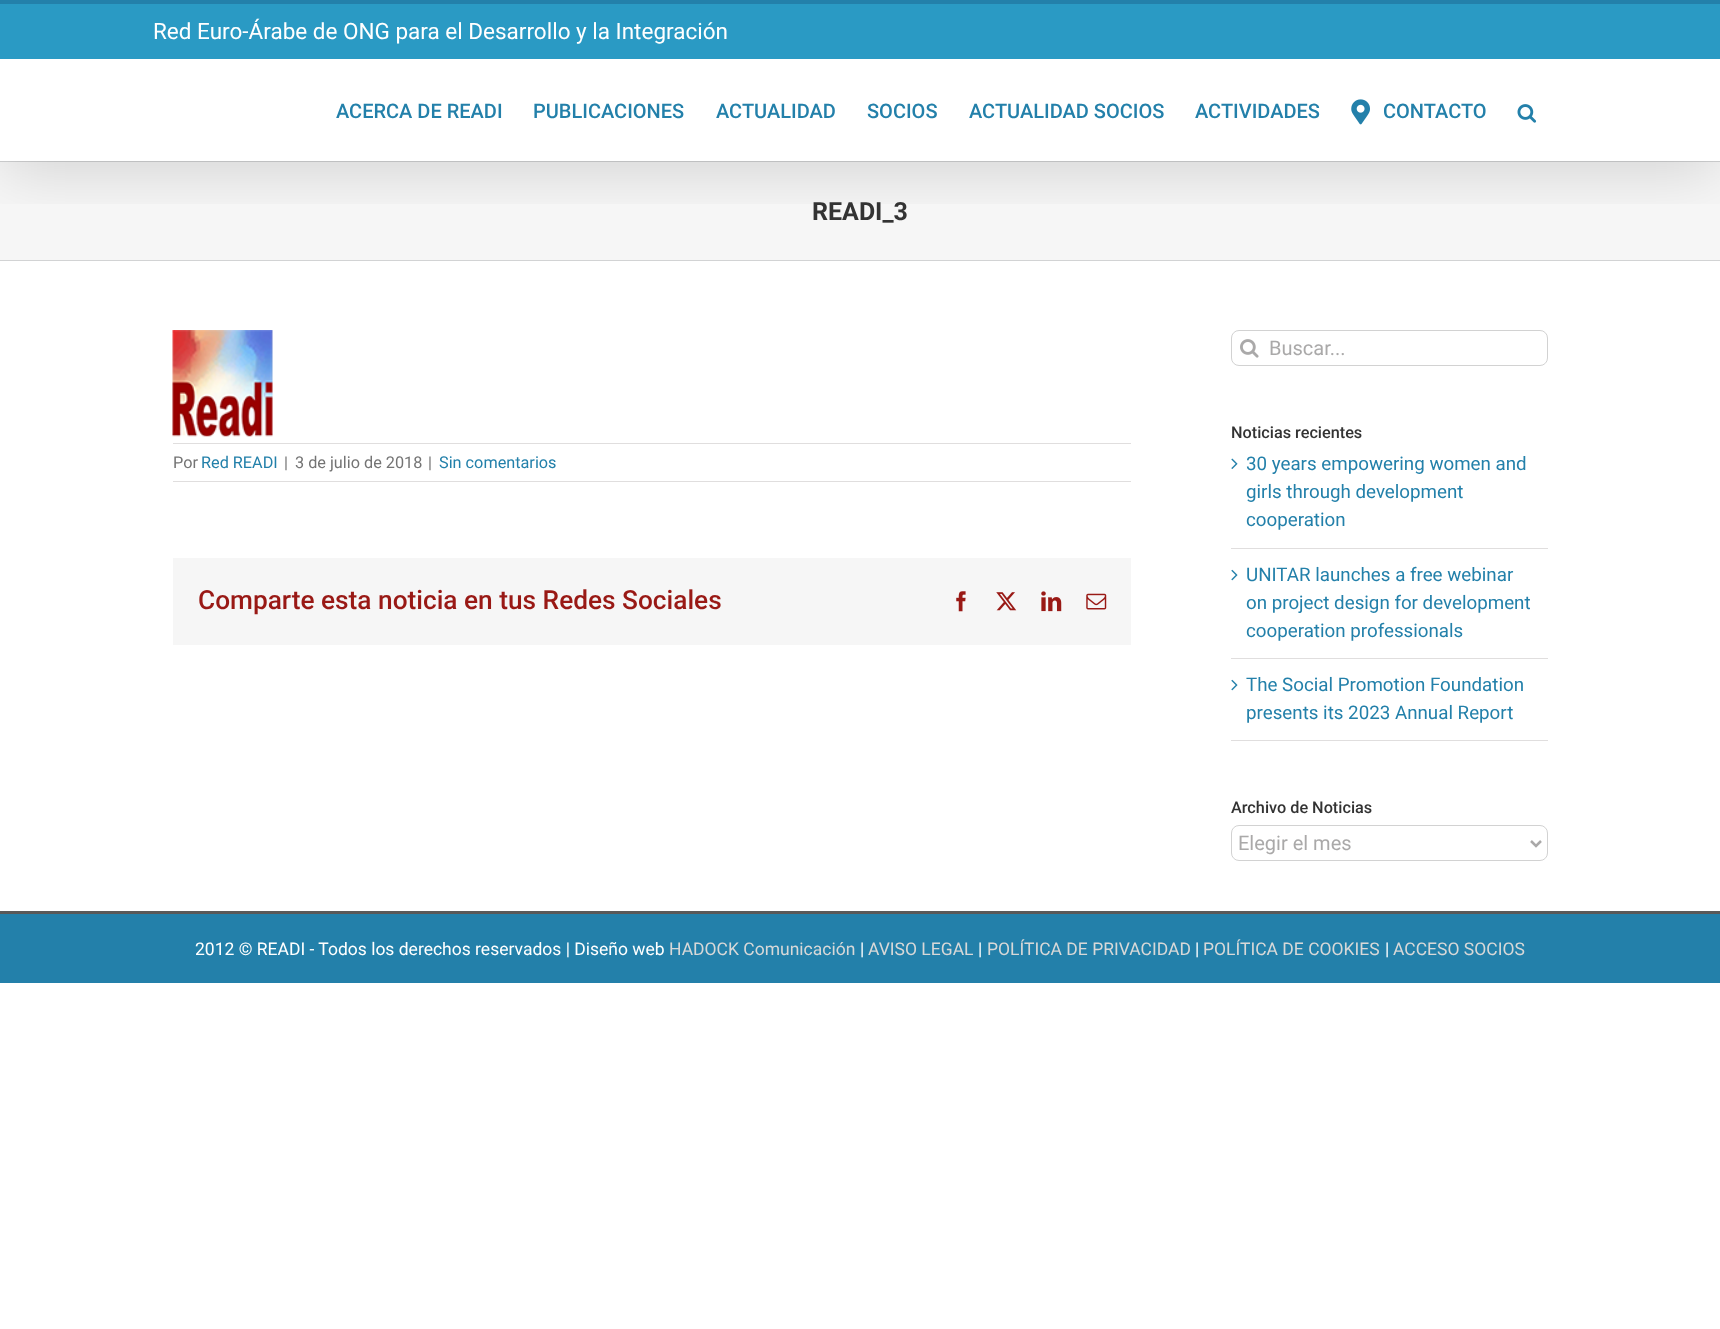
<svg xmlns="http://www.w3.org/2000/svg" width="1720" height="1329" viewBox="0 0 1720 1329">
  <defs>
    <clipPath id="clip1"><path d="M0 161h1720v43H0z"/></clipPath>
  </defs>
  <rect width="100%" height="100%" fill="#fff"/>
  <path d="M0 162h1720v98H0z" fill="#f6f6f6"/>
  <path d="M0 161h1720v1H0z" fill="#d2d3d4"/>
  <path d="M0 260h1720v1H0z" fill="#d2d3d4"/>
  <g clip-path="url(#clip1)">
    <path d="M3 15h1715v156H3z" fill="#00000024" filter="blur(31px)"/>
  </g>
  <path d="M0 4h1720v55H0z" fill="#2a9ac4"/>
  <path d="M0 0h1720v4H0z" fill="#2380aa"/>
  <image x="1351" y="99" width="19" height="26" href="img/1.png"/>
  <image x="1517" y="104" width="20" height="19" href="img/2.png"/>
  <image x="172" y="330" width="101" height="107" href="img/3.png"/>
  <path d="M173 443h958v1H173z" fill="#e0dede"/>
  <path d="M173 481h958v1H173z" fill="#e0dede"/>
  <path d="M173 558h958v87H173z" fill="#f6f6f6"/>
  <image x="956" y="591" width="10" height="21" href="img/4.png"/>
  <image x="996" y="592" width="21" height="19" href="img/5.png"/>
  <image x="1041" y="591" width="21" height="21" href="img/6.png"/>
  <image x="1086" y="593" width="21" height="17" href="img/7.png"/>
  <rect x="1231.5" y="330.5" width="316" height="35" rx="7.5" fill="none" stroke="#d2d2d2"/>
  <image x="1240" y="339" width="19" height="19" href="img/8.png"/>
  <path d="M1231 548h317v1H1231z" fill="#e0dede"/>
  <image x="1231" y="458" width="7" height="11" href="img/9.png"/>
  <path d="M1231 658h317v1H1231z" fill="#e0dede"/>
  <image x="1231" y="569" width="7" height="12" href="img/10.png"/>
  <path d="M1231 740h317v1H1231z" fill="#e0dede"/>
  <image x="1231" y="679" width="7" height="12" href="img/10.png"/>
  <rect x="1231.5" y="825.5" width="316" height="35" rx="7.5" fill="none" stroke="#d2d2d2"/>
  <path d="M1531 841L1536 846L1541 841" fill="none" stroke="#aaa9a9" stroke-width="2.5"/>
  <path d="M0 914h1720v69H0z" fill="#2380aa"/>
  <path d="M0 911h1720v3H0z" fill="#595959"/>
  <text x="153" y="39" font-family="Roboto" font-size="22.5" fill="#fff">Red Euro-Árabe de ONG para el Desarrollo y la Integración</text>
  <g font-family="Roboto" font-size="20" font-weight="500" fill="#2380aa">
    <text x="336" y="118">ACERCA DE READI</text>
    <text x="533" y="118">PUBLICACIONES</text>
    <text x="716" y="118">ACTUALIDAD</text>
    <text x="867" y="118">SOCIOS</text>
    <text x="969" y="118">ACTUALIDAD SOCIOS</text>
    <text x="1195" y="118">ACTIVIDADES</text>
    <text x="1383" y="118">CONTACTO</text>
  </g>
  <text x="812" y="220" font-family="Roboto" font-size="25" font-weight="bold" fill="#333">READI_3</text>
  <text x="173" y="468" font-family="Roboto" font-size="16.25" fill="#747474">Por</text>
  <text x="201" y="468" font-family="Roboto" font-size="16.25" fill="#2380aa">Red READI</text>
  <g font-family="Roboto" font-size="16.25" fill="#747474">
    <text x="284" y="468">|</text>
    <text x="295" y="468">3 de julio de 2018</text>
    <text x="428" y="468">|</text>
  </g>
  <text x="439" y="468" font-family="Roboto" font-size="16.25" fill="#2380aa">Sin comentarios</text>
  <text x="198" y="609" font-family="Roboto" font-size="26.25" font-weight="500" fill="#991915">Comparte esta noticia en tus Redes Sociales</text>
  <text x="1269" y="355" font-family="Roboto" font-size="20" fill="#aaa9a9">Buscar...</text>
  <text x="1231" y="438" font-family="Roboto" font-size="16.25" font-weight="500" fill="#333">Noticias recientes</text>
  <g font-family="Roboto" font-size="18.75" fill="#2380aa">
    <text x="1246" y="470">30 years empowering women and</text>
    <text x="1246" y="498">girls through development</text>
    <text x="1246" y="526">cooperation</text>
    <text x="1246" y="581">UNITAR launches a free webinar</text>
    <text x="1246" y="609">on project design for development</text>
    <text x="1246" y="637">cooperation professionals</text>
    <text x="1246" y="691">The Social Promotion Foundation</text>
    <text x="1246" y="719">presents its 2023 Annual Report</text>
  </g>
  <text x="1231" y="813" font-family="Roboto" font-size="16.25" font-weight="500" fill="#333">Archivo de Noticias</text>
  <text x="1238" y="850" font-family="Roboto" font-size="20" fill="#aaa9a9">Elegir el mes</text>
  <text x="195" y="955" font-family="Roboto" font-size="17.5" fill="#fff">2012 © READI - Todos los derechos reservados | Diseño web</text>
  <text x="669" y="955" font-family="Roboto" font-size="17.5" fill="#d8d8d8">HADOCK Comunicación</text>
  <text x="860" y="955" font-family="Roboto" font-size="17.5" fill="#fff">|</text>
  <text x="868" y="955" font-family="Roboto" font-size="17.5" fill="#d8d8d8">AVISO LEGAL</text>
  <text x="978" y="955" font-family="Roboto" font-size="17.5" fill="#fff">|</text>
  <text x="987" y="955" font-family="Roboto" font-size="17.5" fill="#d8d8d8">POLÍTICA DE PRIVACIDAD</text>
  <text x="1195" y="955" font-family="Roboto" font-size="17.5" fill="#fff">|</text>
  <text x="1203" y="955" font-family="Roboto" font-size="17.5" fill="#d8d8d8">POLÍTICA DE COOKIES</text>
  <text x="1385" y="955" font-family="Roboto" font-size="17.5" fill="#fff">|</text>
  <text x="1393" y="955" font-family="Roboto" font-size="17.5" fill="#d8d8d8">ACCESO SOCIOS</text>
</svg>
